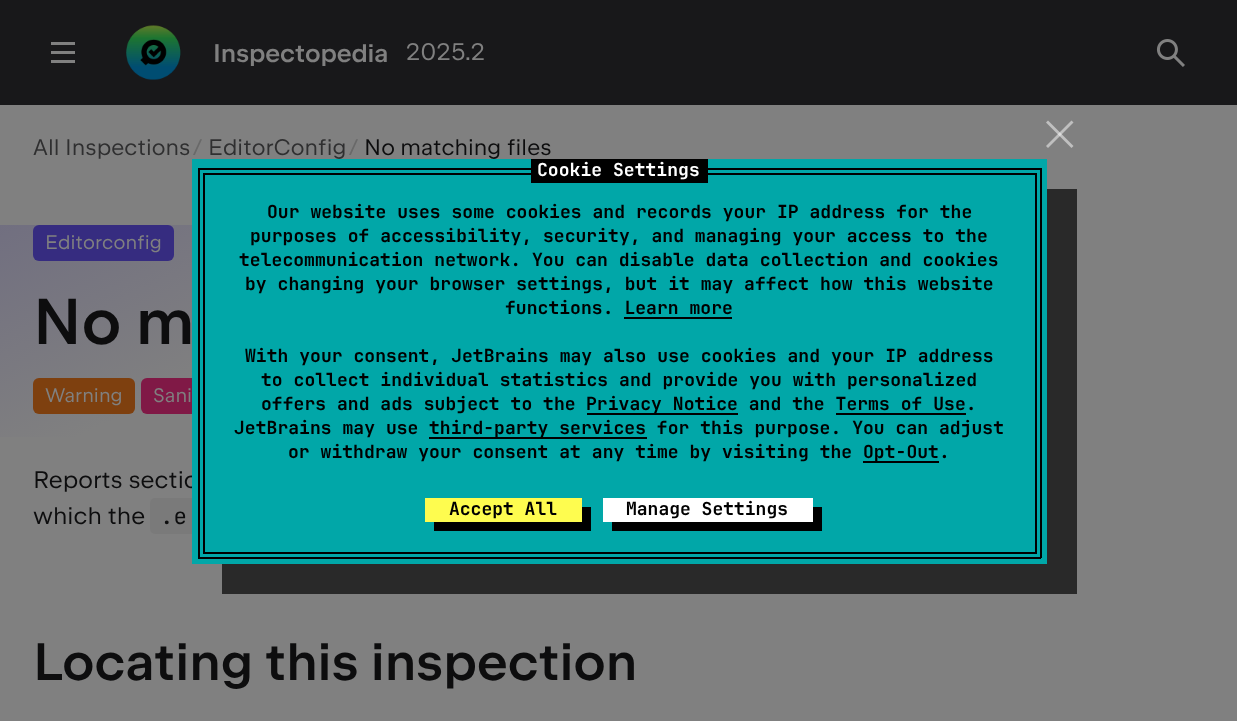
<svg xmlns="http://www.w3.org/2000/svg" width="1237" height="721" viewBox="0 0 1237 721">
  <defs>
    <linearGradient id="g1" gradientUnits="userSpaceOnUse" x1="383" y1="45" x2="782" y2="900"><stop offset="0" stop-color="#716f80"/><stop offset="0.24" stop-color="#808080"/></linearGradient>
  </defs>
  <rect width="100%" height="100%" fill="#808080"/>
  <path d="M0 0h1237v105H0z" fill="#18181a"/>
  <image x="51" y="42" width="24" height="21" href="img/1.png"/>
  <image x="126" y="25" width="55" height="55" href="img/2.png"/>
  <image x="1156" y="39" width="29" height="28" href="img/3.png"/>
  <path d="M0 225h453v212H0z" fill="url(#g1)"/>
  <rect x="33" y="225" width="141" height="36" rx="6" fill="#362c80"/>
  <rect x="33" y="378" width="102" height="36" rx="6" fill="#7e400f"/>
  <rect x="141" y="378" width="80" height="36" rx="6" fill="#801946"/>
  <rect x="150" y="498" width="195" height="36" rx="5" fill="#7a7a7a"/>
  <path d="M222 564V594H1077V189H1047V564Z" fill="#292929"/>
  <path d="M1046 146L1071.5 120.5L1073.5 122.5L1048 148Z" fill="#bfbfbf"/>
  <path d="M1048 120.5L1073.5 146L1071.5 148L1046 122.5Z" fill="#ffffff80"/>
  <text x="213" y="62" font-family="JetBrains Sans" font-size="25.5" font-weight="500" letter-spacing="-0.1" fill="#808080">Inspectopedia</text>
  <text x="406" y="60" font-family="JetBrains Sans" font-size="24" letter-spacing="0.05" fill="#808080">2025.2</text>
  <text x="33" y="155" font-family="JetBrains Sans" font-size="22.5" letter-spacing="0.05" fill="#2f2f30">All Inspections</text>
  <text x="193" y="155" font-family="JetBrains Sans" font-size="22.5" letter-spacing="0.05" fill="#696969">/</text>
  <text x="208" y="155" font-family="JetBrains Sans" font-size="22.5" letter-spacing="0.05" fill="#2f2f30">EditorConfig</text>
  <text x="349" y="155" font-family="JetBrains Sans" font-size="22.5" letter-spacing="0.05" fill="#696969">/</text>
  <text x="364" y="155" font-family="JetBrains Sans" font-size="22.5" letter-spacing="0.05" fill="#0d0d0e">No matching files</text>
  <text x="45" y="249" font-family="JetBrains Sans" font-size="19.5" letter-spacing="0.1" fill="#808080">Editorconfig</text>
  <text x="33" y="344" word-spacing="1" font-family="JetBrains Sans" font-size="64.5" font-weight="500" fill="#0d0d0e">No m</text>
  <g font-family="JetBrains Sans" font-size="19.5" letter-spacing="0.1" fill="#808080">
    <text x="45" y="402">Warning</text>
    <text x="153" y="402">Sani</text>
  </g>
  <g font-family="JetBrains Sans" font-size="24" letter-spacing="0.05" fill="#0d0d0e">
    <text x="33" y="488">Reports sectio</text>
    <text x="33" y="524">which the</text>
  </g>
  <text x="160" y="524" font-family="JetBrains Mono" font-size="22.5" letter-spacing="0.05" fill="#0d0d0e">.e</text>
  <text x="33" y="680" font-family="JetBrains Sans" font-size="52.5" font-weight="500" letter-spacing="0.05" fill="#0d0d0e">Locating this inspection</text>
  <path d="M192 159h855v405H192z" fill="#01a7a8"/>
  <path d="M203 173h834v2H203z" fill="#000"/>
  <path d="M1035 173h2v381H1035z" fill="#000"/>
  <path d="M203 173h2v325H203z" fill="#000"/>
  <path d="M198 168h843v2H198z" fill="#000"/>
  <path d="M531 159h177v24H531z" fill="#000"/>
  <text x="537" y="176" font-family="JetBrains Mono" font-size="18" font-weight="bold" letter-spacing="0.05" fill="#fff">Cookie Settings</text>
  <path d="M1040 168h2v390H1040z" fill="#000"/>
  <path d="M198 168h2v329H198z" fill="#000"/>
  <g font-family="JetBrains Mono" font-size="18" font-weight="bold" letter-spacing="0.05" fill="#000">
    <text x="267" y="218">Our website uses some cookies and records your IP address for the</text>
    <text x="250" y="242">purposes of accessibility, security, and managing your access to the</text>
    <text x="239" y="266">telecommunication network. You can disable data collection and cookies</text>
    <text x="245" y="290">by changing your browser settings, but it may affect how this website</text>
    <text x="505" y="314">functions. Learn more</text>
  </g>
  <path d="M624 317h108v2H624z" fill="#000"/>
  <g font-family="JetBrains Mono" font-size="18" font-weight="bold" letter-spacing="0.05" fill="#000">
    <text x="245" y="362">With your consent, JetBrains may also use cookies and your IP address</text>
    <text x="261" y="386">to collect individual statistics and provide you with personalized</text>
    <text x="261" y="410">offers and ads subject to the</text>
  </g>
  <path d="M587 413h151v2H587z" fill="#000"/>
  <text x="586" y="410" font-family="JetBrains Mono" font-size="18" font-weight="bold" letter-spacing="0.05" fill="#000">Privacy Notice and the Terms of Use.</text>
  <path d="M836 413h130v2H836z" fill="#000"/>
  <text x="234" y="434" font-family="JetBrains Mono" font-size="18" font-weight="bold" letter-spacing="0.05" fill="#000">JetBrains may use</text>
  <path d="M429 437h218v2H429z" fill="#000"/>
  <g font-family="JetBrains Mono" font-size="18" font-weight="bold" letter-spacing="0.05" fill="#000">
    <text x="429" y="434">third-party services for this purpose. You can adjust</text>
    <text x="288" y="458">or withdraw your consent at any time by visiting the</text>
  </g>
  <path d="M863 461h76v2H863z" fill="#000"/>
  <text x="863" y="458" font-family="JetBrains Mono" font-size="18" font-weight="bold" letter-spacing="0.05" fill="#000">Opt-Out.</text>
  <path d="M203 552h834v2H203z" fill="#000"/>
  <path d="M203 498h2v56H203z" fill="#000"/>
  <path d="M198 557h843v2H198z" fill="#000"/>
  <path d="M198 497h2v61H198z" fill="#000"/>
  <path d="M434 522V531H591V507H582V522Z" fill="#000"/>
  <path d="M425 498h157v24H425z" fill="#fefc4f"/>
  <text x="449" y="515" font-family="JetBrains Mono" font-size="18" font-weight="bold" fill="#000">Accept All</text>
  <path d="M612 522V531H822V507H813V522Z" fill="#000"/>
  <path d="M603 498h210v24H603z" fill="#fff"/>
  <text x="626" y="515" font-family="JetBrains Mono" font-size="18" font-weight="bold" fill="#000">Manage Settings</text>
</svg>
